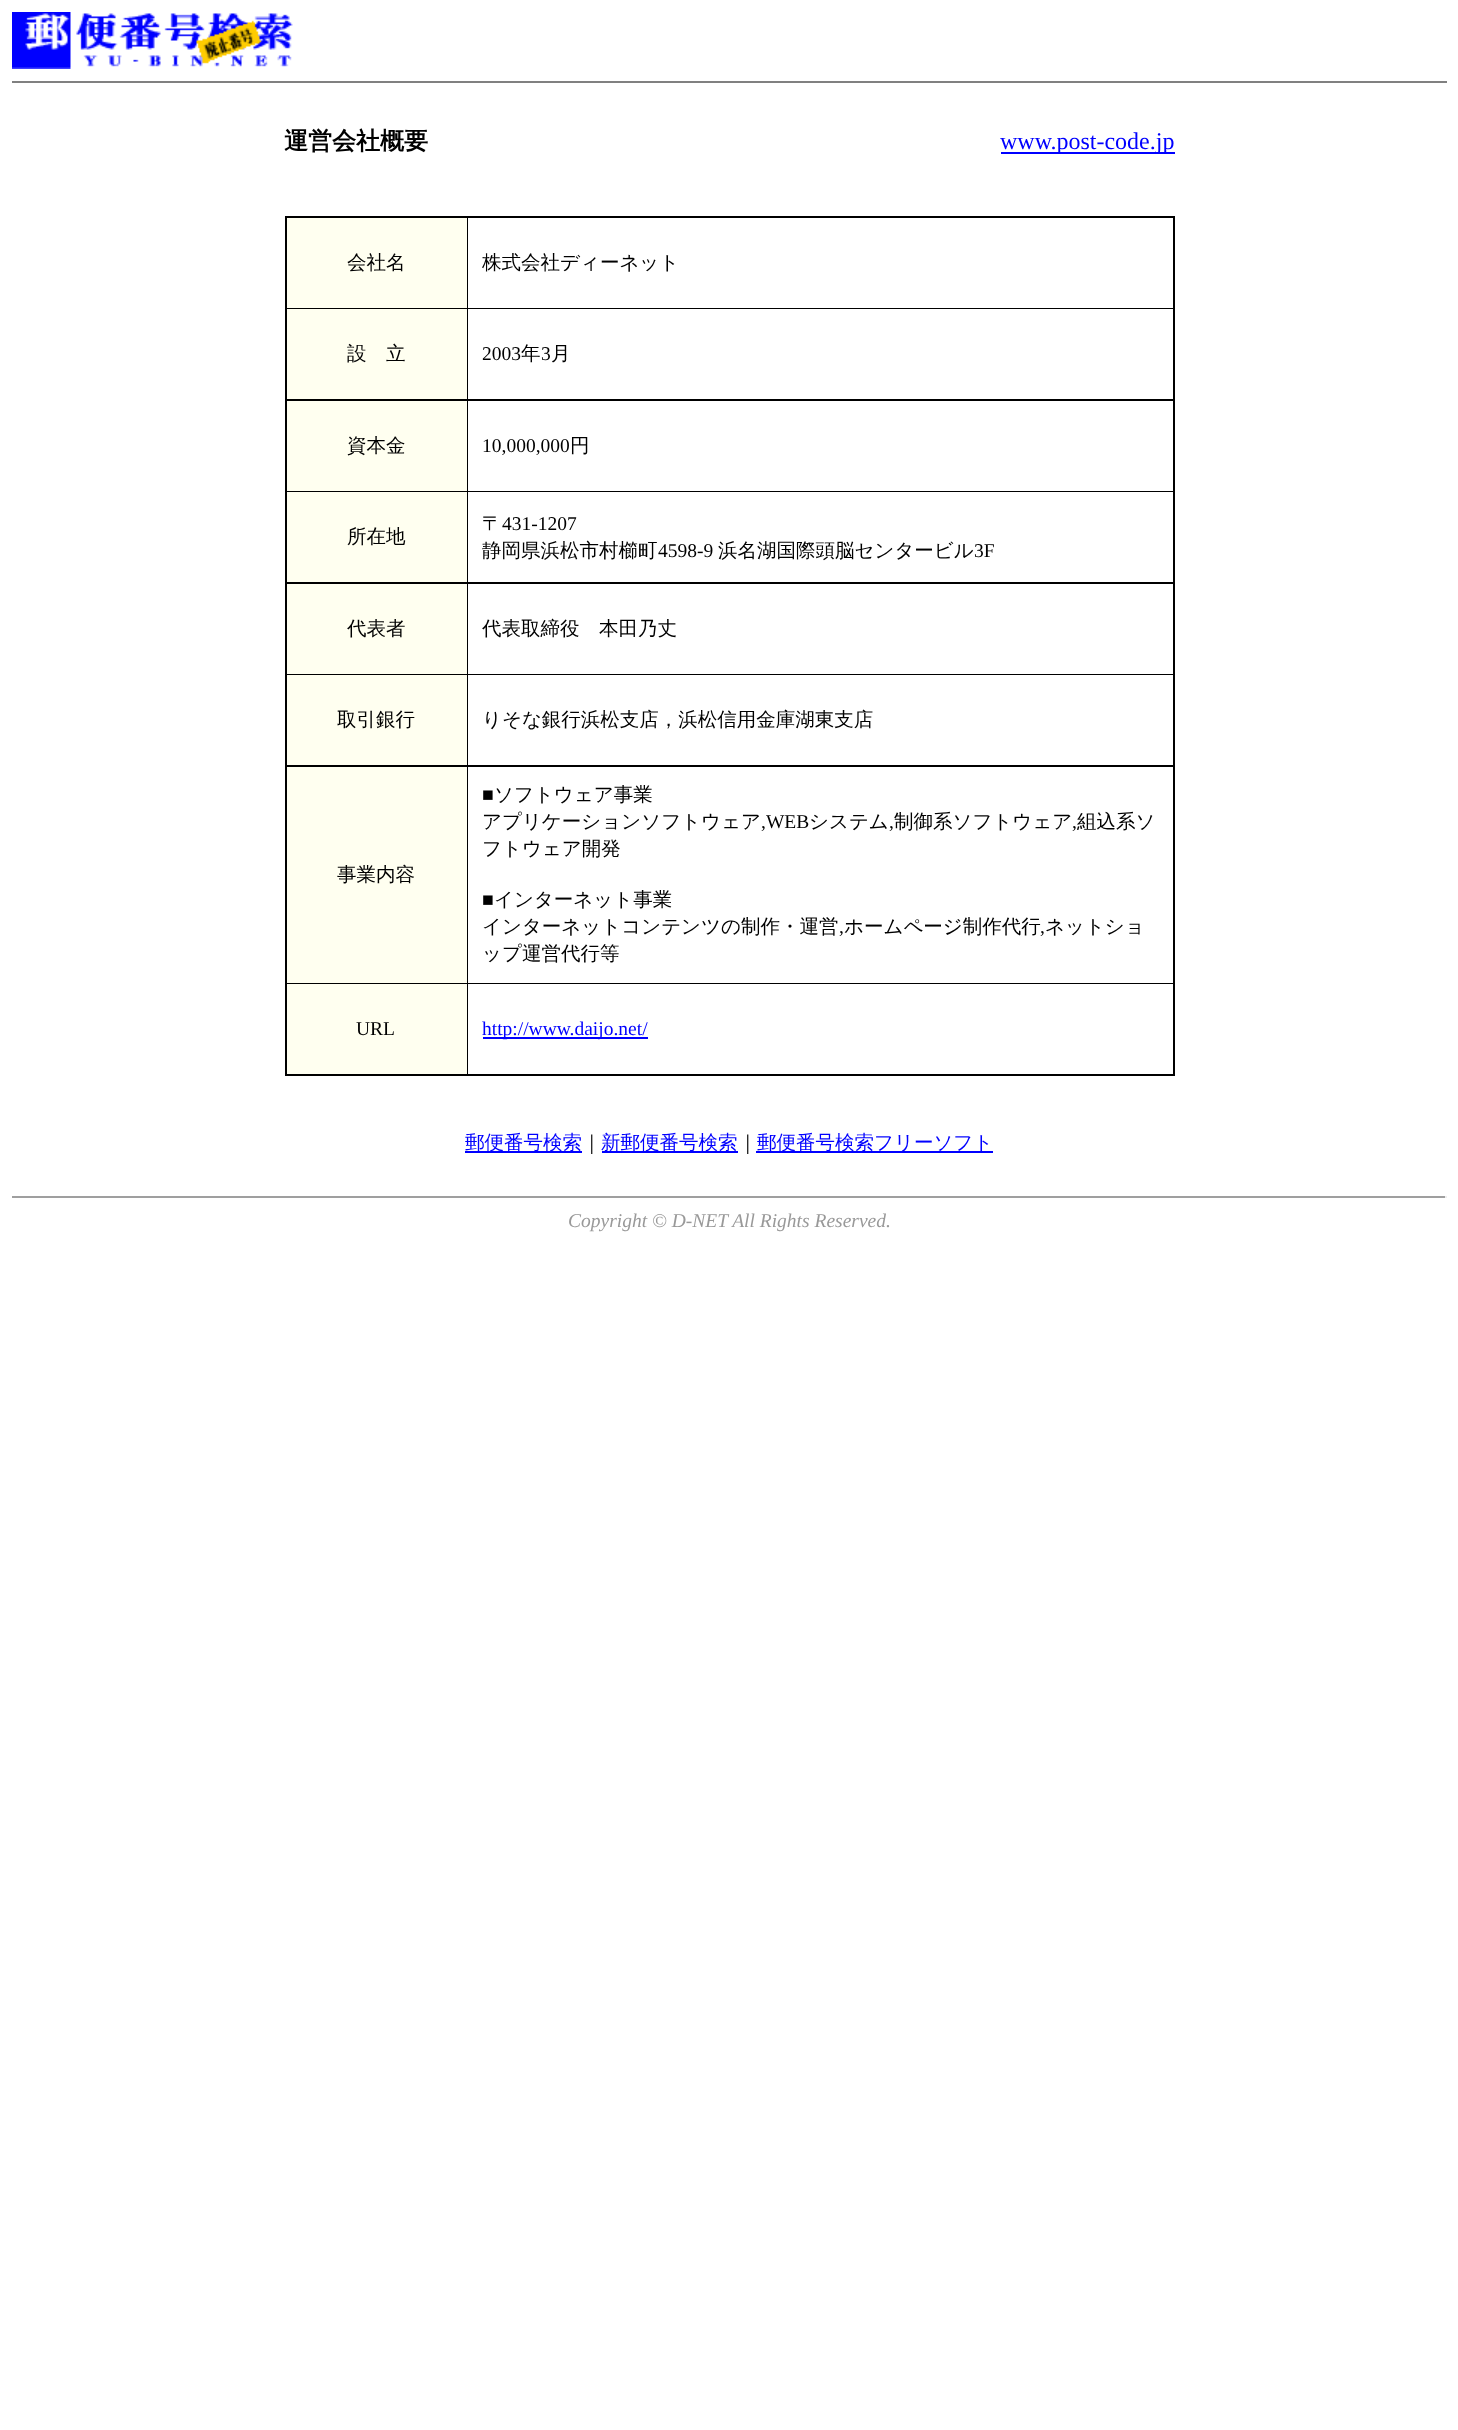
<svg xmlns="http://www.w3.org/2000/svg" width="1458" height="2430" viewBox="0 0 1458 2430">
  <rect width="100%" height="100%" fill="#fff"/>
  <image x="12" y="12" width="281" height="57" href="img/1.png"/>
  <path d="M12 81h1435v2H12z" fill="#808080"/>
  <path d="M1001 152h174v2H1001z" fill="#00f"/>
  <path d="M285 216h890v860H285z" fill="#000"/>
  <path d="M287 218h180v90H287z" fill="#fffff0"/>
  <path d="M468 218h705v90H468z" fill="#fff"/>
  <path d="M287 309h180v90H287z" fill="#fffff0"/>
  <path d="M468 309h705v90H468z" fill="#fff"/>
  <path d="M287 401h180v90H287z" fill="#fffff0"/>
  <path d="M468 401h705v90H468z" fill="#fff"/>
  <path d="M287 492h180v90H287z" fill="#fffff0"/>
  <path d="M468 492h705v90H468z" fill="#fff"/>
  <path d="M287 584h180v90H287z" fill="#fffff0"/>
  <path d="M468 584h705v90H468z" fill="#fff"/>
  <path d="M287 675h180v90H287z" fill="#fffff0"/>
  <path d="M468 675h705v90H468z" fill="#fff"/>
  <path d="M287 767h180v216H287z" fill="#fffff0"/>
  <path d="M468 767h705v216H468z" fill="#fff"/>
  <path d="M287 984h180v90H287z" fill="#fffff0"/>
  <path d="M468 984h705v90H468z" fill="#fff"/>
  <path d="M483 1037h165v2H483z" fill="#00f"/>
  <path d="M465 1151h117v2H465z" fill="#00f"/>
  <path d="M602 1151h136v2H602z" fill="#00f"/>
  <path d="M756 1151h237v2H756z" fill="#00f"/>
  <path d="M12 1196h1434v2H12z" fill="#9f9f9f"/>
  <path d="M1445 1196h2v2H1445z" fill="#eee"/>
  <text x="284" y="149" font-family="WenQuanYi Zen Hei" font-size="24" font-weight="bold" fill="#000">運営会社概要</text>
  <text x="1000" y="149" font-family="Liberation Serif" font-size="24" fill="#00f">www.post-code.jp</text>
  <g font-family="WenQuanYi Zen Hei" font-size="19.5" font-weight="500" fill="#000">
    <text x="347" y="269">会社名</text>
    <text x="482" y="269">株式会社ディーネット</text>
    <text x="347" y="360">設　立</text>
  </g>
  <text x="482" y="360" font-family="Liberation Serif" font-size="19.5" fill="#000">2003</text>
  <text x="521" y="360" font-family="WenQuanYi Zen Hei" font-size="19.5" font-weight="500" fill="#000">年</text>
  <text x="541" y="360" font-family="Liberation Serif" font-size="19.5" fill="#000">3</text>
  <g font-family="WenQuanYi Zen Hei" font-size="19.5" font-weight="500" fill="#000">
    <text x="551" y="360">月</text>
    <text x="347" y="452">資本金</text>
  </g>
  <text x="482" y="452" font-family="Liberation Serif" font-size="19.5" fill="#000">10,000,000</text>
  <g font-family="WenQuanYi Zen Hei" font-size="19.5" font-weight="500" fill="#000">
    <text x="570" y="452">円</text>
    <text x="347" y="543">所在地</text>
    <text x="482" y="530">〒</text>
  </g>
  <text x="502" y="530" font-family="Liberation Serif" font-size="19.5" fill="#000">431-1207</text>
  <text x="482" y="557" font-family="WenQuanYi Zen Hei" font-size="19.5" font-weight="500" fill="#000">静岡県浜松市村櫛町</text>
  <text x="658" y="557" font-family="Liberation Serif" font-size="19.5" fill="#000">4598-9</text>
  <text x="718" y="557" font-family="WenQuanYi Zen Hei" font-size="19.5" font-weight="500" fill="#000">浜名湖国際頭脳センタービル</text>
  <text x="974" y="557" font-family="Liberation Serif" font-size="19.5" fill="#000">3F</text>
  <g font-family="WenQuanYi Zen Hei" font-size="19.5" font-weight="500" fill="#000">
    <text x="347" y="635">代表者</text>
    <text x="482" y="635">代表取締役　本田乃丈</text>
    <text x="337" y="726">取引銀行</text>
    <text x="482" y="726">りそな銀行浜松支店，浜松信用金庫湖東支店</text>
    <text x="337" y="881">事業内容</text>
  </g>
  <text x="482" y="801" font-family="Liberation Serif" font-size="19.5" fill="#000">■</text>
  <g font-family="WenQuanYi Zen Hei" font-size="19.5" font-weight="500" fill="#000">
    <text x="494" y="801">ソフトウェア事業</text>
    <text x="482" y="828">アプリケーションソフトウェア</text>
  </g>
  <text x="761" y="828" font-family="Liberation Serif" font-size="19.5" fill="#000">,WEB</text>
  <text x="809" y="828" font-family="WenQuanYi Zen Hei" font-size="19.5" font-weight="500" fill="#000">システム</text>
  <text x="889" y="828" font-family="Liberation Serif" font-size="19.5" fill="#000">,</text>
  <text x="894" y="828" font-family="WenQuanYi Zen Hei" font-size="19.5" font-weight="500" fill="#000">制御系ソフトウェア</text>
  <text x="1072" y="828" font-family="Liberation Serif" font-size="19.5" fill="#000">,</text>
  <g font-family="WenQuanYi Zen Hei" font-size="19.5" font-weight="500" fill="#000">
    <text x="1077" y="828">組込系ソ</text>
    <text x="482" y="855">フトウェア開発</text>
  </g>
  <text x="482" y="906" font-family="Liberation Serif" font-size="19.5" fill="#000">■</text>
  <g font-family="WenQuanYi Zen Hei" font-size="19.5" font-weight="500" fill="#000">
    <text x="494" y="906">インターネット事業</text>
    <text x="482" y="933">インターネットコンテンツの制作・運営</text>
  </g>
  <text x="839" y="933" font-family="Liberation Serif" font-size="19.5" fill="#000">,</text>
  <text x="844" y="933" font-family="WenQuanYi Zen Hei" font-size="19.5" font-weight="500" fill="#000">ホームページ制作代行</text>
  <text x="1040" y="933" font-family="Liberation Serif" font-size="19.5" fill="#000">,</text>
  <g font-family="WenQuanYi Zen Hei" font-size="19.5" font-weight="500" fill="#000">
    <text x="1045" y="933">ネットショ</text>
    <text x="482" y="960">ップ運営代行等</text>
  </g>
  <text x="356" y="1035" font-family="Liberation Serif" font-size="19.5" fill="#000">URL</text>
  <text x="482" y="1035" font-family="Liberation Serif" font-size="19.5" fill="#00f">http://www.daijo.net/</text>
  <text x="465" y="1149" font-family="WenQuanYi Zen Hei" font-size="19.5" font-weight="500" fill="#00f">郵便番号検索</text>
  <text x="582" y="1149" font-family="WenQuanYi Zen Hei" font-size="19.5" font-weight="500" fill="#000">｜</text>
  <text x="601" y="1149" font-family="WenQuanYi Zen Hei" font-size="19.5" font-weight="500" fill="#00f">新郵便番号検索</text>
  <text x="738" y="1149" font-family="WenQuanYi Zen Hei" font-size="19.5" font-weight="500" fill="#000">｜</text>
  <text x="757" y="1149" font-family="WenQuanYi Zen Hei" font-size="19.5" font-weight="500" fill="#00f">郵便番号検索フリーソフト</text>
  <text x="568" y="1227" font-family="Liberation Serif" font-size="19.5" font-style="italic" fill="#999">Copyright © D-NET All Rights Reserved.</text>
</svg>
